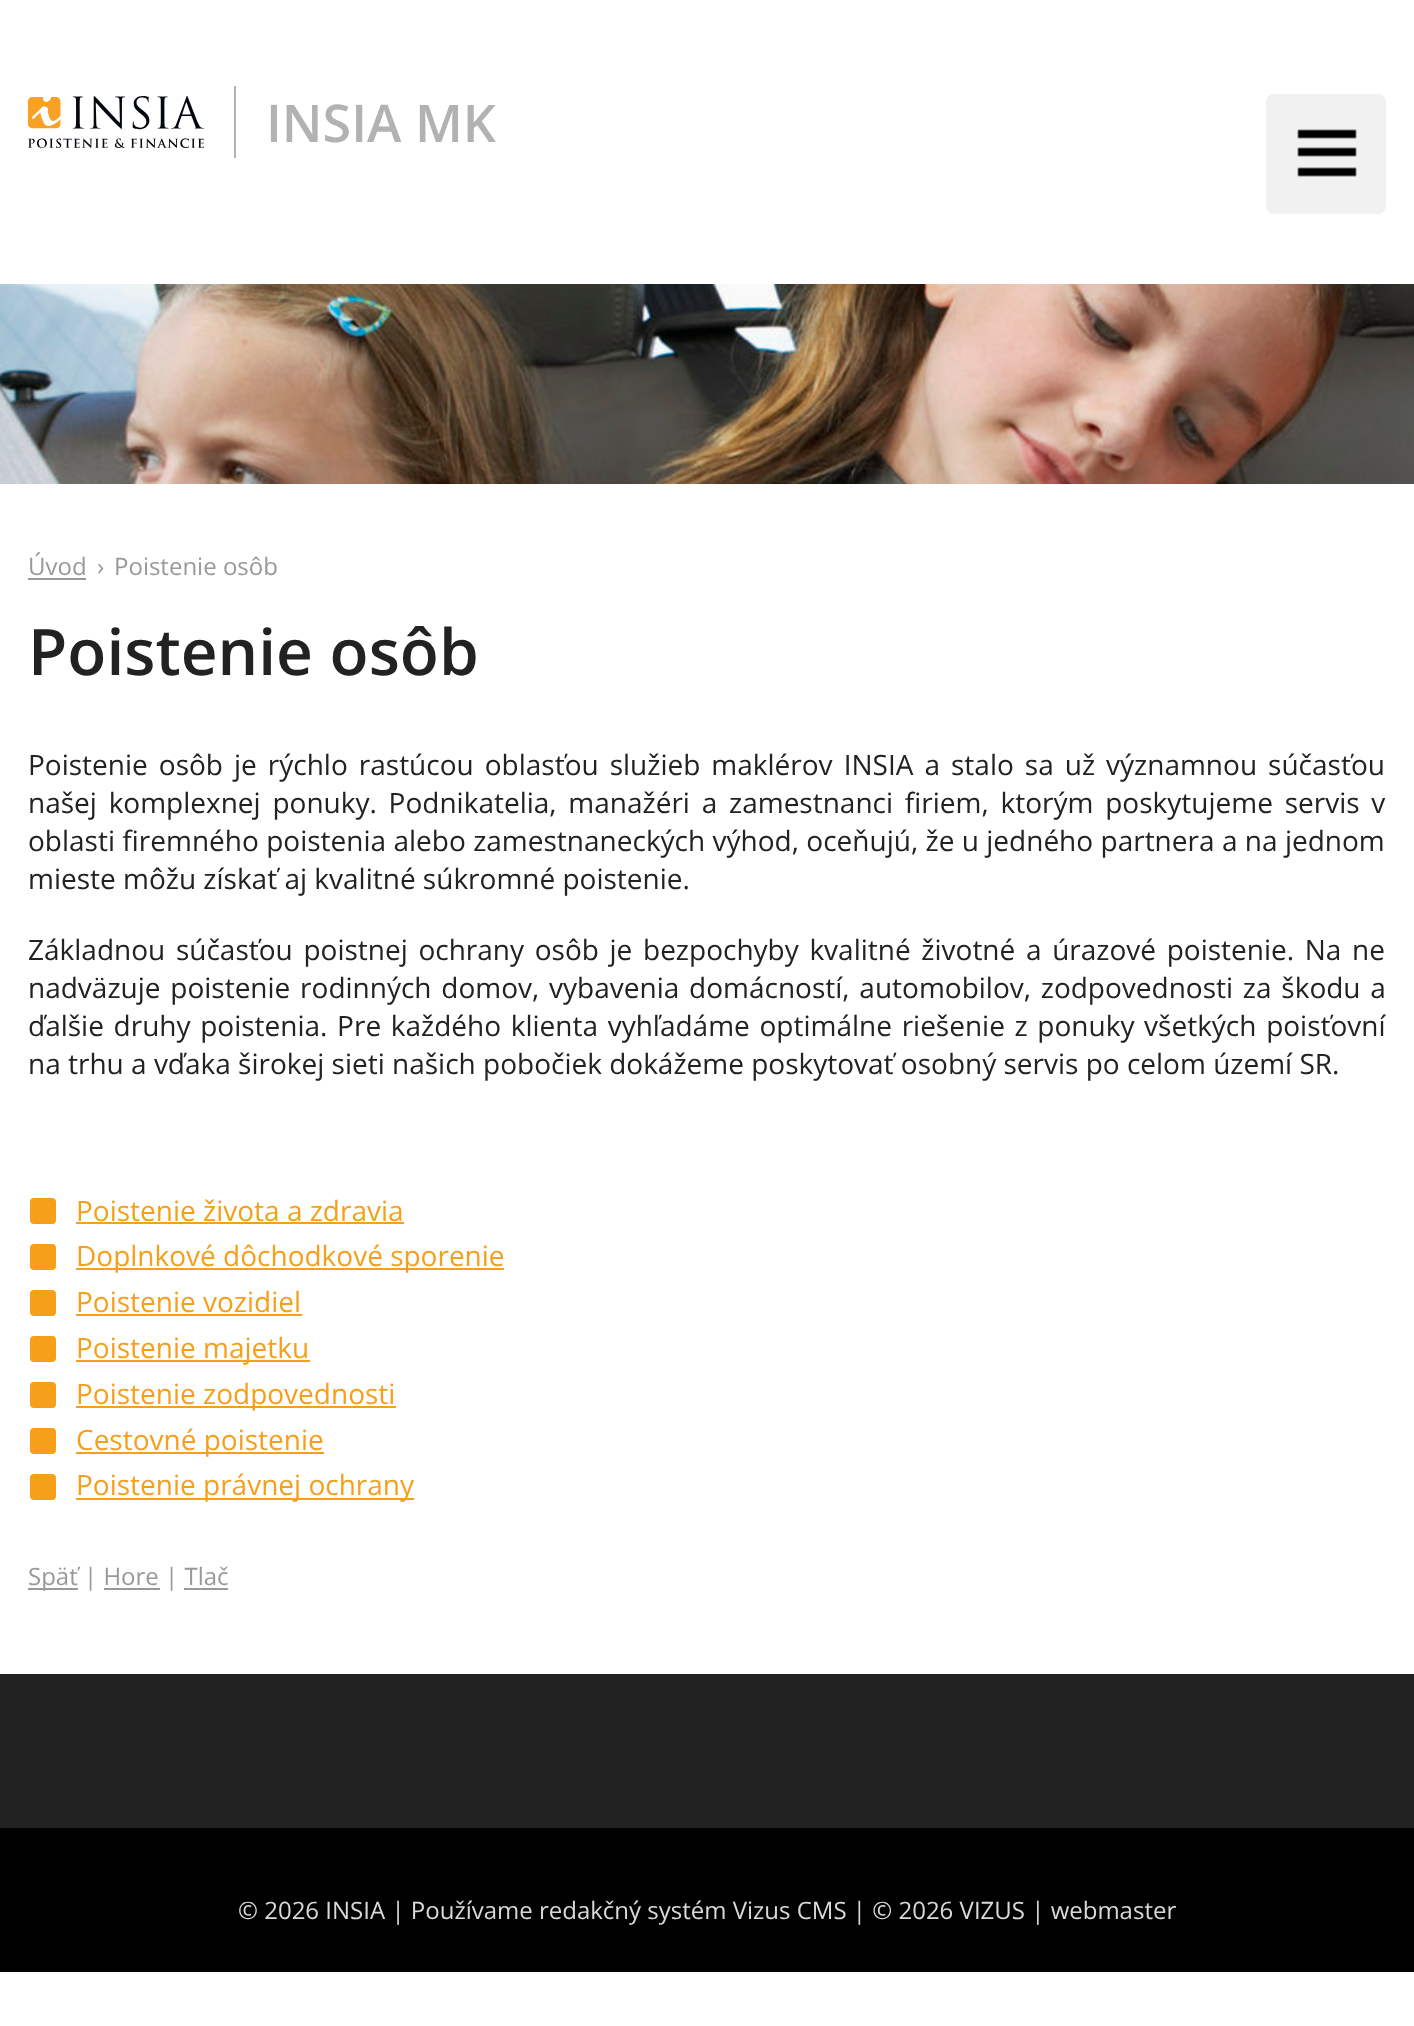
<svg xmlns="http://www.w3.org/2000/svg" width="1414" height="2026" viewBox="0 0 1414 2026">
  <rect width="100%" height="100%" fill="#fff"/>
  <path d="M234 86h2v72H234z" fill="#b2b2b2"/>
  <image x="28" y="96" width="176" height="52" href="img/1.png"/>
  <rect x="1266" y="94" width="120" height="120" rx="8" fill="#f1f1f1"/>
  <image x="1297" y="129" width="60" height="48" href="img/2.png"/>
  <rect x="1267" y="95" width="118" height="118" rx="7" fill="none" stroke="#f1f1f1" stroke-width="2"/>
  <image x="0" y="284" width="1414" height="200" href="img/3.png"/>
  <path d="M28 578h58v2H28z" fill="#999"/>
  <rect x="30" y="1198" width="26" height="26" rx="4" fill="#f69f1a"/>
  <path d="M76 1222h328v2H76z" fill="#f69f1a"/>
  <rect x="30" y="1244" width="26" height="26" rx="4" fill="#f69f1a"/>
  <path d="M76 1268h428v2H76z" fill="#f69f1a"/>
  <rect x="30" y="1290" width="26" height="26" rx="4" fill="#f69f1a"/>
  <path d="M76 1314h226v2H76z" fill="#f69f1a"/>
  <rect x="30" y="1336" width="26" height="26" rx="4" fill="#f69f1a"/>
  <path d="M76 1360h234v2H76z" fill="#f69f1a"/>
  <rect x="30" y="1382" width="26" height="26" rx="4" fill="#f69f1a"/>
  <path d="M76 1406h320v2H76z" fill="#f69f1a"/>
  <rect x="30" y="1428" width="26" height="26" rx="4" fill="#f69f1a"/>
  <path d="M76 1452h248v2H76z" fill="#f69f1a"/>
  <rect x="30" y="1474" width="26" height="26" rx="4" fill="#f69f1a"/>
  <path d="M76 1498h338v2H76z" fill="#f69f1a"/>
  <path d="M28 1588h50v2H28z" fill="#999"/>
  <path d="M104 1588h56v2H104z" fill="#999"/>
  <path d="M184 1588h44v2H184z" fill="#999"/>
  <path d="M0 1674h1414v154H0z" fill="#222"/>
  <path d="M0 1828h1414v144H0z" fill="#000"/>
  <text x="266" y="142" font-family="Open Sans" font-size="52" font-weight="600" fill="#b2b2b2">INSIA MK</text>
  <g font-family="Open Sans" font-size="24" fill="#999">
    <text x="28" y="575">Úvod</text>
    <text x="97" y="575">›</text>
    <text x="114" y="575">Poistenie osôb</text>
  </g>
  <text x="28" y="675" font-family="Open Sans" font-size="64" font-weight="600" fill="#222">Poistenie osôb</text>
  <g font-family="Open Sans" font-size="28" fill="#222">
    <text x="28" y="775" word-spacing="3.75">Poistenie osôb je rýchlo rastúcou oblasťou služieb maklérov INSIA a stalo sa už významnou súčasťou</text>
    <text x="28" y="813" word-spacing="4.5">našej komplexnej ponuky. Podnikatelia, manažéri a zamestnanci firiem, ktorým poskytujeme servis v</text>
    <text x="28" y="851" word-spacing="0.1">oblasti firemného poistenia alebo zamestnaneckých výhod, oceňujú, že u jedného partnera a na jednom</text>
    <text x="28" y="889">mieste môžu získať aj kvalitné súkromné poistenie.</text>
    <text x="28" y="960" word-spacing="3.4">Základnou súčasťou poistnej ochrany osôb je bezpochyby kvalitné životné a úrazové poistenie. Na ne</text>
    <text x="28" y="998" word-spacing="2.5">nadväzuje poistenie rodinných domov, vybavenia domácností, automobilov, zodpovednosti za škodu a</text>
    <text x="28" y="1036" word-spacing="2.4">ďalšie druhy poistenia. Pre každého klienta vyhľadáme optimálne riešenie z ponuky všetkých poisťovní</text>
    <text x="28" y="1074">na trhu a vďaka širokej sieti našich pobočiek dokážeme poskytovať osobný servis po celom území SR.</text>
  </g>
  <g font-family="Open Sans" font-size="28" fill="#f69f1a">
    <text x="76" y="1221">Poistenie života a zdravia</text>
    <text x="76" y="1266">Doplnkové dôchodkové sporenie</text>
    <text x="76" y="1312">Poistenie vozidiel</text>
    <text x="76" y="1358">Poistenie majetku</text>
    <text x="76" y="1404">Poistenie zodpovednosti</text>
    <text x="76" y="1450">Cestovné poistenie</text>
    <text x="76" y="1495">Poistenie právnej ochrany</text>
  </g>
  <text x="28" y="1585" font-family="Open Sans" font-size="24" fill="#999">Späť | Hore | Tlač</text>
  <text x="238" y="1919" font-family="Open Sans" font-size="24" fill="#d9d9d9">© 2026 INSIA | Používame redakčný systém Vizus CMS | © 2026 VIZUS | webmaster</text>
</svg>
